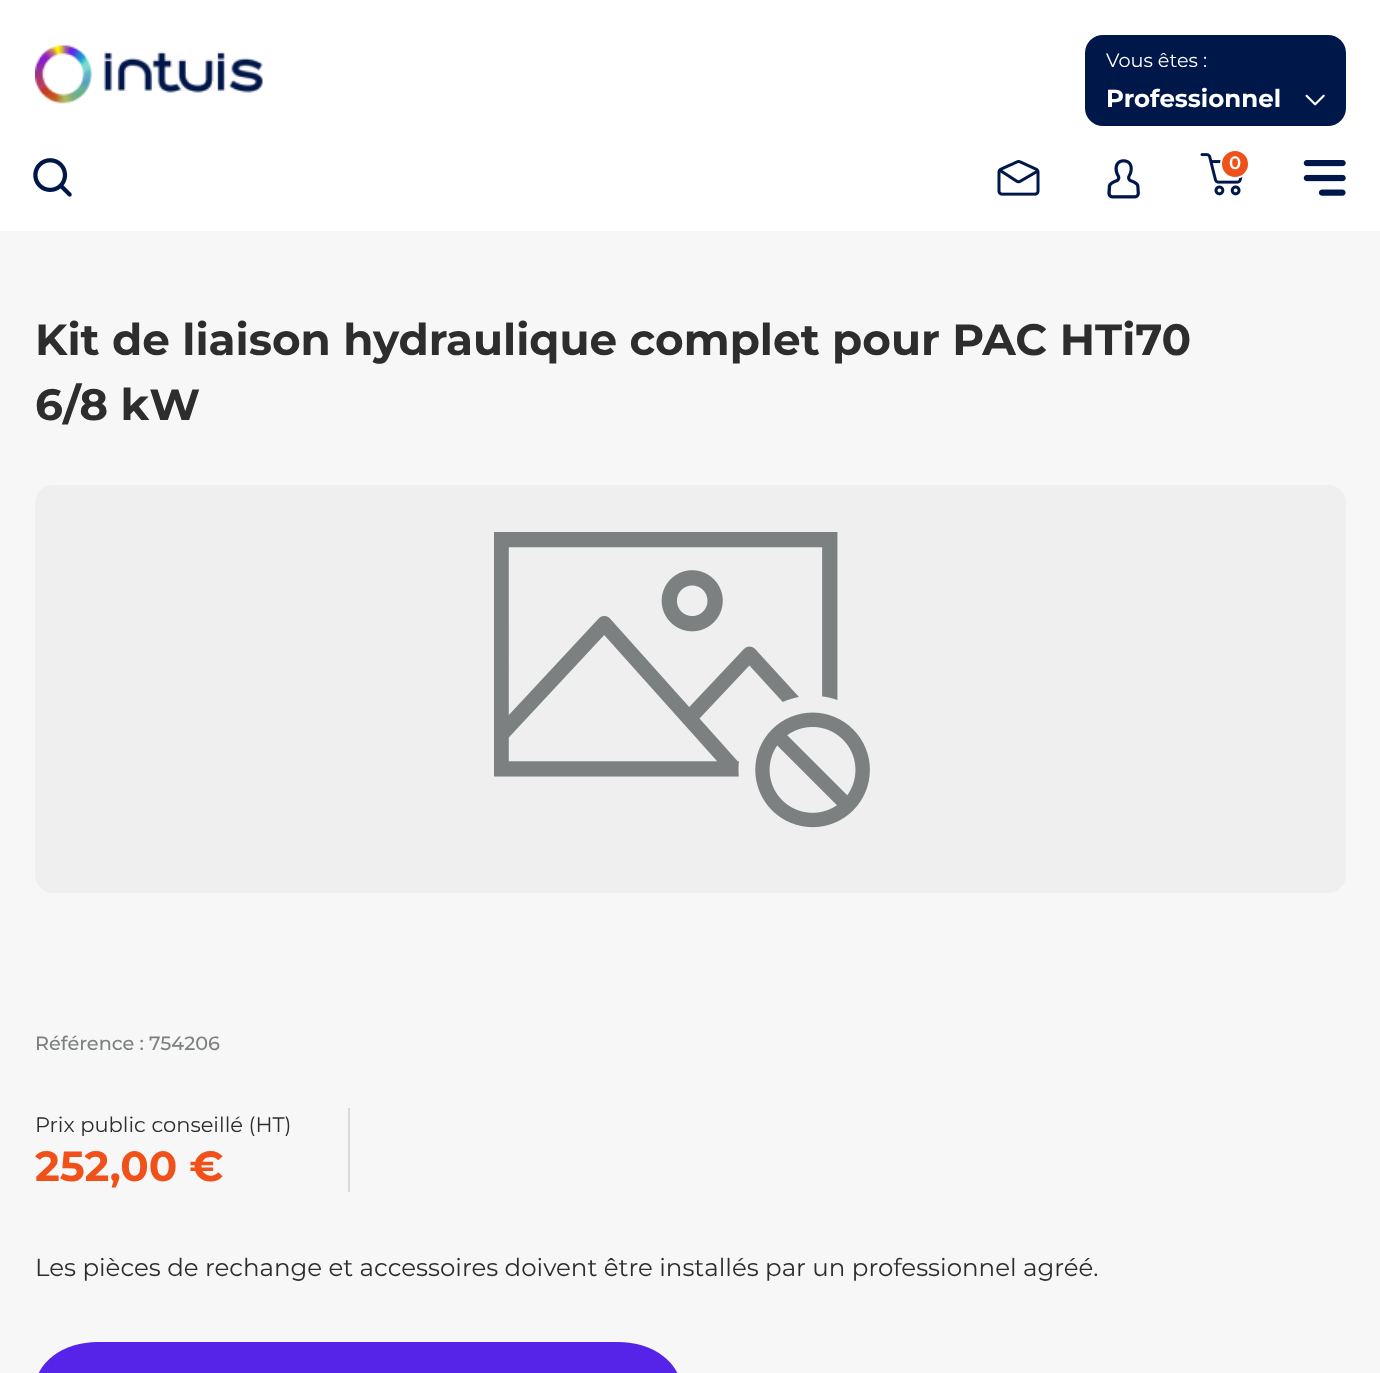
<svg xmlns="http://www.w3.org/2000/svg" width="1380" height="1373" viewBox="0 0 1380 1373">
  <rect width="100%" height="100%" fill="#f7f7f7"/>
  <path d="M0 0h1380v231H0z" fill="#fff"/>
  <image x="35" y="45" width="228" height="59" href="img/1.png"/>
  <rect x="1085" y="35" width="261" height="91" rx="18" fill="#001749"/>
  <image x="1305" y="94" width="20" height="12" href="img/2.png"/>
  <image x="33" y="158" width="39" height="39" href="img/3.png"/>
  <image x="997" y="160" width="43" height="36" href="img/4.png"/>
  <image x="1107" y="159" width="33" height="40" href="img/5.png"/>
  <image x="1200" y="153" width="43" height="43" href="img/6.png"/>
  <circle cx="1235" cy="164" r="14" fill="#f05019" stroke="#fff" stroke-width="2"/>
  <image x="1303" y="160" width="43" height="36" href="img/7.png"/>
  <path d="M348 1108h2v84H348z" fill="#d9d9d9"/>
  <rect x="35" y="1342" width="646" height="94" rx="62.5" fill="#5624e8"/>
  <rect x="35" y="485" width="1311" height="408" rx="18" fill="#efefef"/>
  <image x="494" y="532" width="376" height="296" href="img/8.png"/>
  <text x="1106" y="67" font-family="Montserrat" font-size="19.25" fill="#fff">Vous êtes :</text>
  <text x="1106" y="107" font-family="Montserrat" font-size="24.5" font-weight="bold" fill="#fff">Professionnel</text>
  <text x="1229" y="169" font-family="Montserrat" font-size="18" font-weight="600" fill="#fff">0</text>
  <g font-family="Montserrat" font-size="43.75" font-weight="bold" fill="#2d2d2d">
    <text x="35" y="355">Kit de liaison hydraulique complet pour PAC HTi70</text>
    <text x="35" y="420">6/8 kW</text>
  </g>
  <text x="35" y="1050" font-family="Montserrat" font-size="19.25" font-weight="500" fill="#7c8080">Référence : 754206</text>
  <text x="35" y="1132" font-family="Montserrat" font-size="21" fill="#2d2d2d">Prix public conseillé (HT)</text>
  <text x="35" y="1181" font-family="Montserrat" font-size="42" font-weight="bold" fill="#f05019">252,00 €</text>
  <text x="35" y="1276" font-family="Montserrat" font-size="24.5" fill="#2d2d2d">Les pièces de rechange et accessoires doivent être installés par un professionnel agréé.</text>
</svg>
